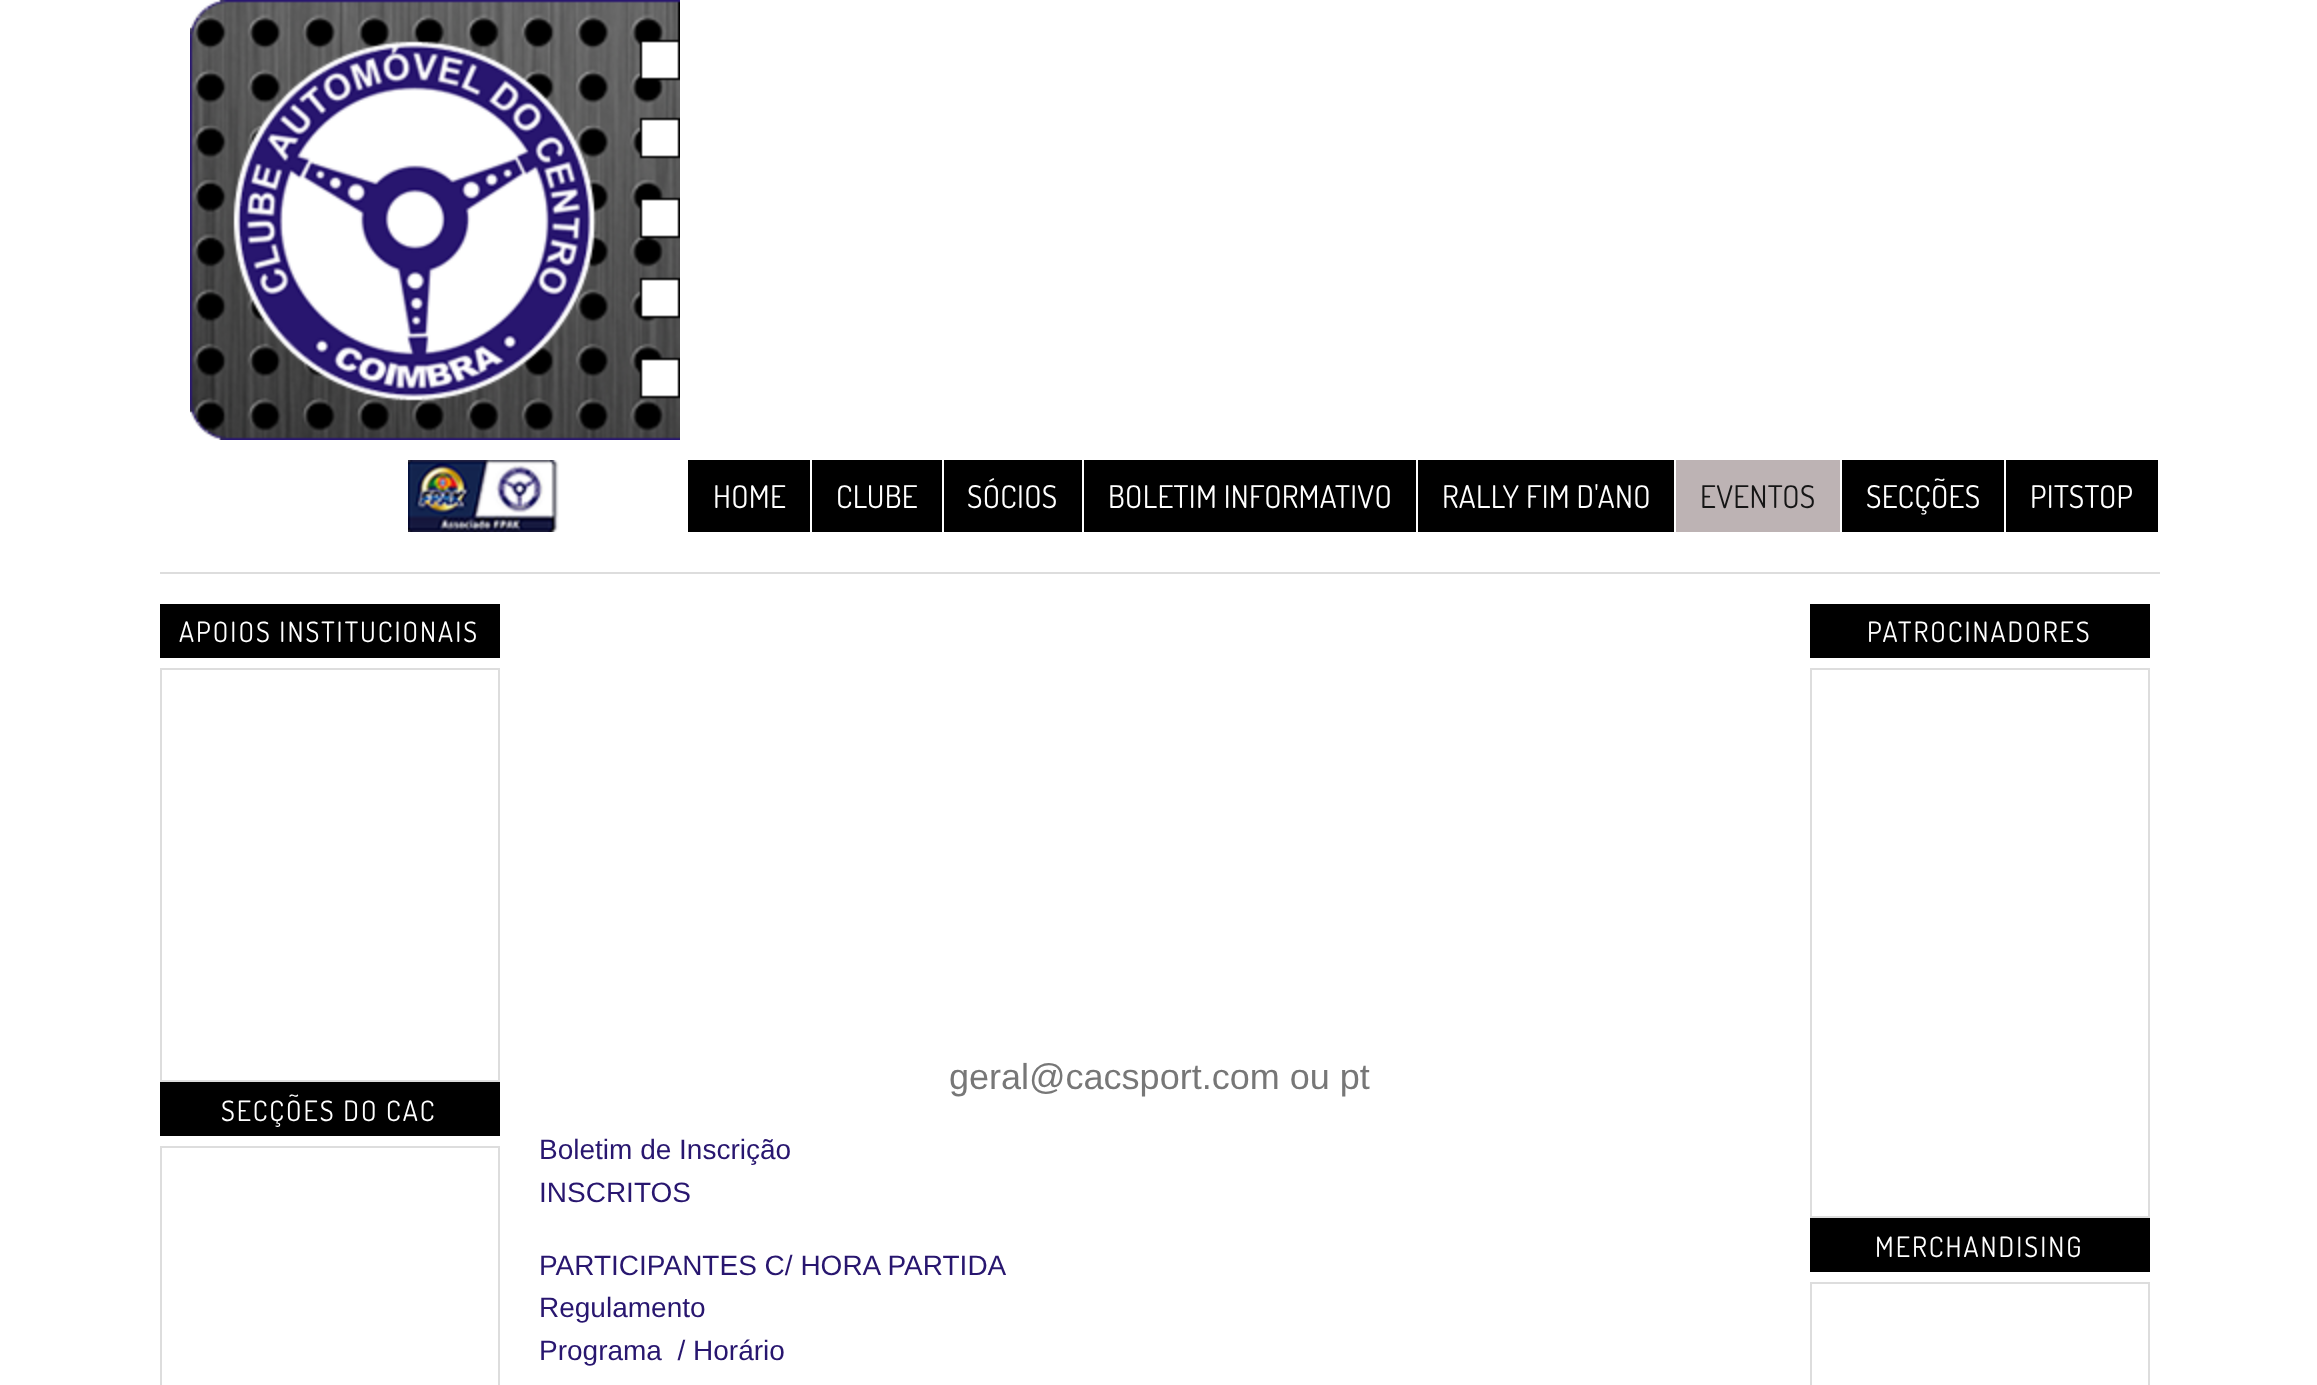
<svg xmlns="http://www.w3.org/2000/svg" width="2317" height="1385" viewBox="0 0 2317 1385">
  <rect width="100%" height="100%" fill="#fff"/>
  <image x="190" y="0" width="490" height="440" href="img/1.png"/>
  <image x="408" y="460" width="151" height="72" href="img/2.png"/>
  <path d="M688 460h122v72H688z" fill="#000"/>
  <path d="M812 460h130v72H812z" fill="#000"/>
  <path d="M944 460h138v72H944z" fill="#000"/>
  <path d="M1084 460h332v72H1084z" fill="#000"/>
  <path d="M1418 460h256v72H1418z" fill="#000"/>
  <path d="M1676 460h164v72H1676z" fill="#bdb3b4"/>
  <path d="M1842 460h162v72H1842z" fill="#000"/>
  <path d="M2006 460h152v72H2006z" fill="#000"/>
  <path d="M160 572h2000v2H160z" fill="#ddd"/>
  <path d="M160 604h340v54H160z" fill="#000"/>
  <path d="M161 669h338v412H161z" fill="none" stroke="#ddd" stroke-width="2"/>
  <path d="M160 1082h340v54H160z" fill="#000"/>
  <path d="M161 1147h338v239H161z" fill="none" stroke="#ddd" stroke-width="2"/>
  <path d="M1810 604h340v54H1810z" fill="#000"/>
  <path d="M1811 669h338v548H1811z" fill="none" stroke="#ddd" stroke-width="2"/>
  <path d="M1810 1218h340v54H1810z" fill="#000"/>
  <path d="M1811 1283h338v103H1811z" fill="none" stroke="#ddd" stroke-width="2"/>
  <g font-family="Dosis" font-size="31.25" letter-spacing="0.3" fill="#fff">
    <text x="713" y="508">HOME</text>
    <text x="836" y="508">CLUBE</text>
    <text x="967" y="508">SÓCIOS</text>
    <text x="1108" y="508">BOLETIM INFORMATIVO</text>
    <text x="1442" y="508">RALLY FIM D'ANO</text>
  </g>
  <text x="1700" y="508" font-family="Dosis" font-size="31.25" letter-spacing="0.3" fill="#151515">EVENTOS</text>
  <g font-family="Dosis" font-size="31.25" letter-spacing="0.3" fill="#fff">
    <text x="1866" y="508">SECÇÕES</text>
    <text x="2030" y="508">PITSTOP</text>
  </g>
  <g font-family="Dosis" font-size="28" letter-spacing="2" fill="#fff">
    <text x="179" y="642">APOIOS INSTITUCIONAIS</text>
    <text x="221" y="1121">SECÇÕES DO CAC</text>
  </g>
  <text x="949" y="1089" font-family="Liberation Sans" font-size="36" fill="#777">geral@cacsport.com ou pt</text>
  <g font-family="Liberation Sans" font-size="28" fill="#28166f">
    <text x="539" y="1159">Boletim de Inscrição</text>
    <text x="539" y="1202">INSCRITOS</text>
    <text x="539" y="1275">PARTICIPANTES C/ HORA PARTIDA</text>
    <text x="539" y="1317">Regulamento</text>
    <text x="539" y="1360" xml:space="preserve">Programa  / Horário</text>
  </g>
  <g font-family="Dosis" font-size="28" letter-spacing="2" fill="#fff">
    <text x="1867" y="642">PATROCINADORES</text>
    <text x="1875" y="1257">MERCHANDISING</text>
  </g>
</svg>
